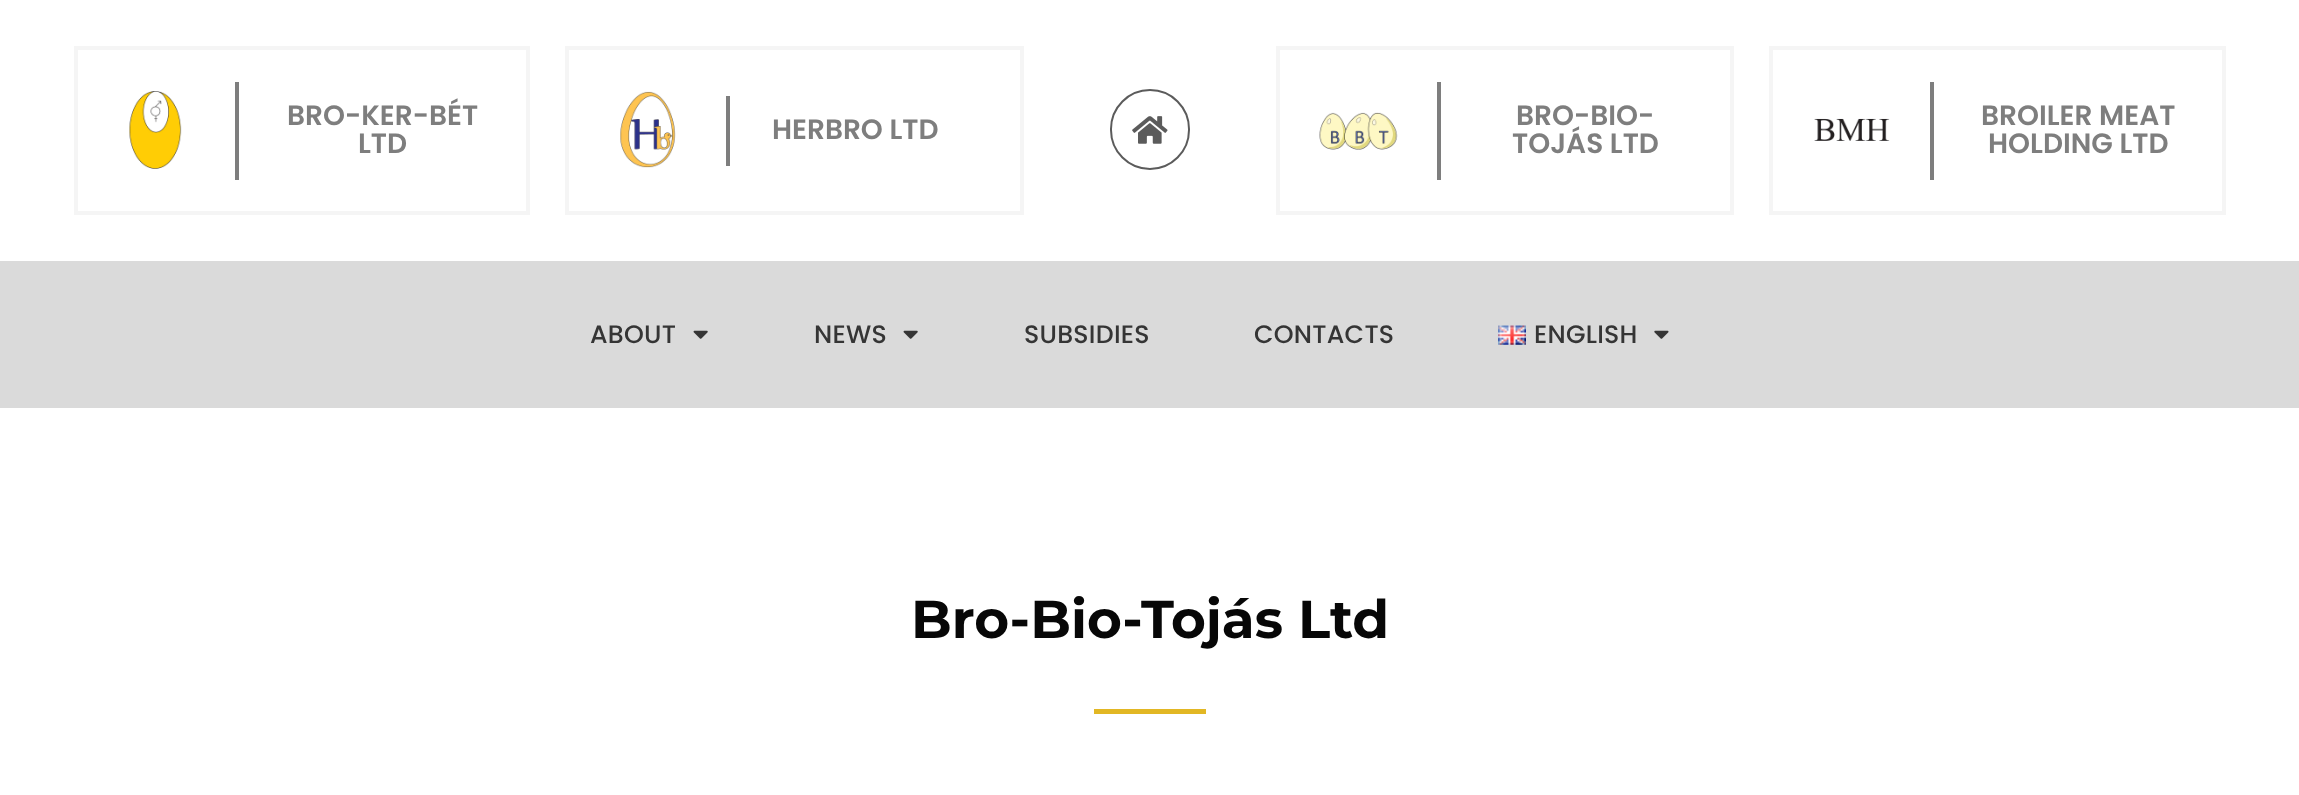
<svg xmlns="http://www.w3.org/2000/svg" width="2299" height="795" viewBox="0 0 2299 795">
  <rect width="100%" height="100%" fill="#fff"/>
  <path d="M76 48h452v165H76z" fill="none" stroke="#f5f5f5" stroke-width="4"/>
  <image x="129" y="91" width="53" height="78" href="img/1.png"/>
  <path d="M235 82h4v98H235z" fill="#7e7e7e"/>
  <path d="M567 48h455v165H567z" fill="none" stroke="#f5f5f5" stroke-width="4"/>
  <image x="620" y="91" width="56" height="77" href="img/2.png"/>
  <path d="M726 96h4v70H726z" fill="#7e7e7e"/>
  <rect x="1111" y="90" width="78" height="79" rx="39" fill="none" stroke="#5b5b5b" stroke-width="2"/>
  <image x="1132" y="116" width="36" height="28" href="img/3.png"/>
  <path d="M1278 48h454v165H1278z" fill="none" stroke="#f5f5f5" stroke-width="4"/>
  <image x="1319" y="112" width="79" height="38" href="img/4.png"/>
  <path d="M1437 82h4v98H1437z" fill="#7e7e7e"/>
  <path d="M1771 48h453v165H1771z" fill="none" stroke="#f5f5f5" stroke-width="4"/>
  <image x="1814" y="118" width="76" height="23" href="img/5.png"/>
  <path d="M1930 82h4v98H1930z" fill="#7e7e7e"/>
  <path d="M0 261h2299v147H0z" fill="#dadada"/>
  <image x="693" y="330" width="15" height="9" href="img/6.png"/>
  <image x="903" y="330" width="15" height="9" href="img/6.png"/>
  <image x="1498" y="325" width="28" height="20" href="img/7.png"/>
  <image x="1654" y="330" width="15" height="9" href="img/8.png"/>
  <path d="M1094 709h112v5H1094z" fill="#e2b724"/>
  <g font-family="Poppins" font-size="28" font-weight="600" fill="#7e7e7e">
    <text x="287" y="125">BRO-KER-BÉT</text>
    <text x="358" y="153">LTD</text>
    <text x="772" y="139">HERBRO LTD</text>
    <text x="1516" y="125">BRO-BIO-</text>
    <text x="1512" y="153">TOJÁS LTD</text>
    <text x="1981" y="125">BROILER MEAT</text>
    <text x="1988" y="153">HOLDING LTD</text>
  </g>
  <g font-family="Poppins" font-size="25.25" font-weight="500" letter-spacing="0.25" fill="#353535">
    <text x="590" y="343">ABOUT</text>
    <text x="814" y="343">NEWS</text>
    <text x="1024" y="343">SUBSIDIES</text>
    <text x="1254" y="343">CONTACTS</text>
    <text x="1534" y="343">ENGLISH</text>
  </g>
  <text x="911" y="638" font-family="Montserrat" font-size="53.25" font-weight="bold" fill="#070707">Bro-Bio-Tojás Ltd</text>
</svg>
